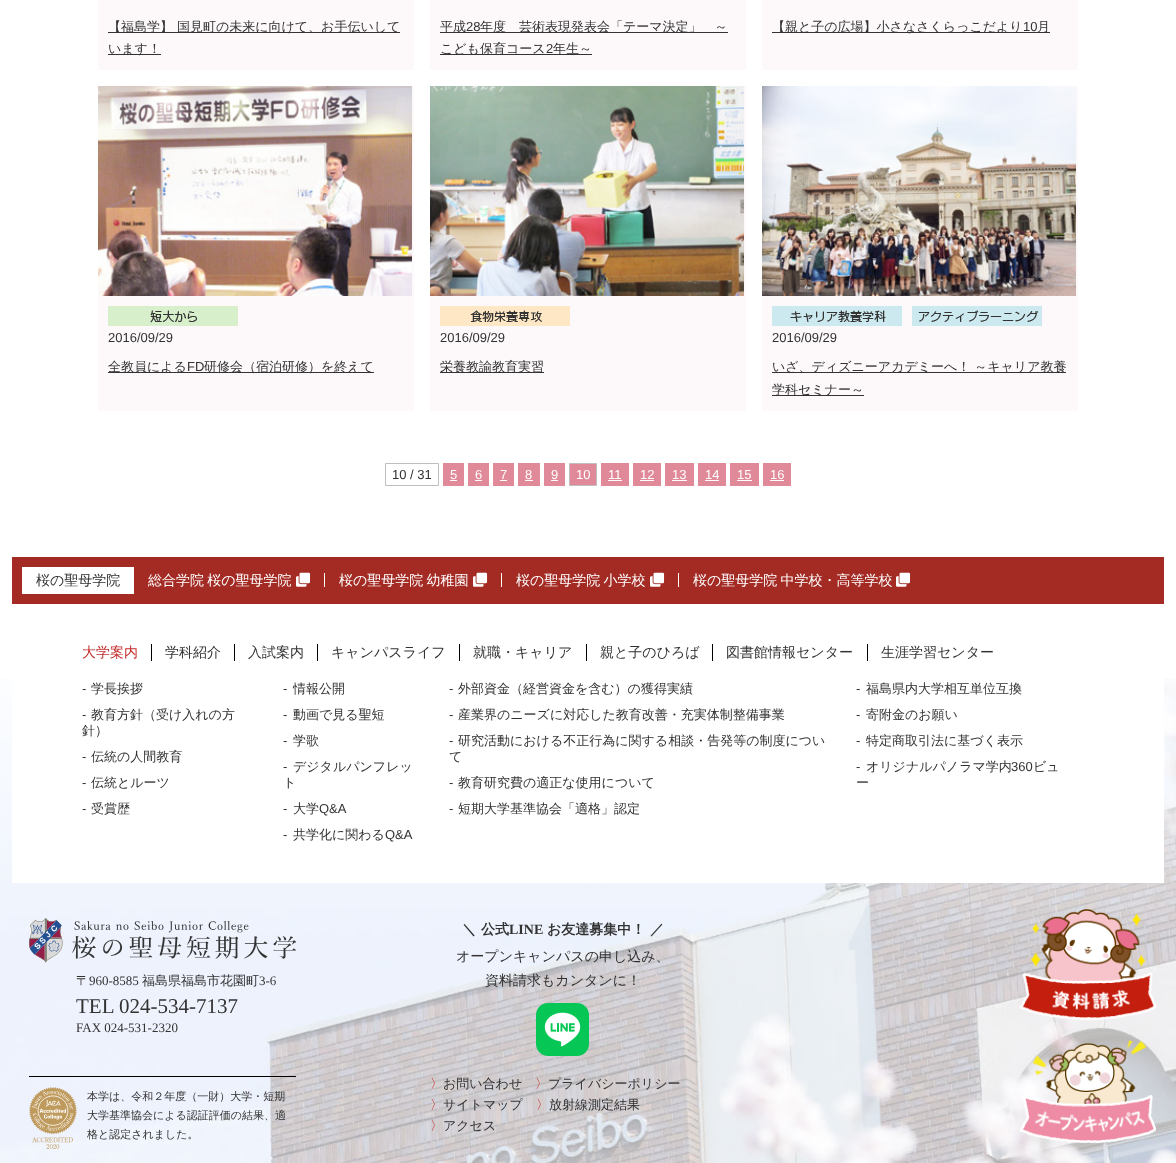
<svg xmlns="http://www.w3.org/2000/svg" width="1176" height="1163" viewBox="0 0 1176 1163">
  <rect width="100%" height="100%" fill="#fff"/>
  <path d="M98 0h316v70H98z" fill="#fdf9fa"/>
  <path d="M108 32h292v1H108z" fill="#333"/>
  <path d="M108 54h53v1H108z" fill="#333"/>
  <path d="M430 0h316v70H430z" fill="#fdf9fa"/>
  <path d="M440 32h288v1H440z" fill="#333"/>
  <path d="M440 54h152v1H440z" fill="#333"/>
  <path d="M762 0h316v70H762z" fill="#fdf9fa"/>
  <path d="M772 32h278v1H772z" fill="#333"/>
  <path d="M98 86h316v325H98z" fill="#fdf9fa"/>
  <image x="98" y="86" width="314" height="210" href="img/1.png"/>
  <image x="108" y="306" width="130" height="20" href="img/2.png"/>
  <path d="M108 372h266v1H108z" fill="#333"/>
  <path d="M430 86h316v325H430z" fill="#fdf9fa"/>
  <image x="430" y="86" width="314" height="210" href="img/3.png"/>
  <image x="440" y="306" width="130" height="20" href="img/4.png"/>
  <path d="M440 372h104v1H440z" fill="#333"/>
  <path d="M762 86h316v325H762z" fill="#fdf9fa"/>
  <image x="762" y="86" width="314" height="210" href="img/5.png"/>
  <image x="772" y="306" width="130" height="20" href="img/6.png"/>
  <image x="912" y="306" width="130" height="20" href="img/7.png"/>
  <path d="M772 372h294v1H772z" fill="#333"/>
  <path d="M772 395h92v1H772z" fill="#333"/>
  <path d="M385.5 463.5h53v22H385.5z" fill="none" stroke="#bfbfbf"/>
  <path d="M443 463h21v23H443z" fill="#e08998"/>
  <path d="M450 480h7v1H450z" fill="#fff"/>
  <path d="M468 463h21v23H468z" fill="#e08998"/>
  <path d="M475 480h7v1H475z" fill="#fff"/>
  <path d="M493 463h21v23H493z" fill="#e08998"/>
  <path d="M500 480h7v1H500z" fill="#fff"/>
  <path d="M518 463h22v23H518z" fill="#e08998"/>
  <path d="M525 480h8v1H525z" fill="#fff"/>
  <path d="M544 463h21v23H544z" fill="#e08998"/>
  <path d="M551 480h7v1H551z" fill="#fff"/>
  <path d="M569.5 463.5h27v22H569.5z" fill="#e08998" stroke="#bfbfbf"/>
  <path d="M601 463h28v23H601z" fill="#e08998"/>
  <path d="M608 480h14v1H608z" fill="#fff"/>
  <path d="M633 463h28v23H633z" fill="#e08998"/>
  <path d="M640 480h14v1H640z" fill="#fff"/>
  <path d="M665 463h29v23H665z" fill="#e08998"/>
  <path d="M672 480h15v1H672z" fill="#fff"/>
  <path d="M698 463h28v23H698z" fill="#e08998"/>
  <path d="M705 480h14v1H705z" fill="#fff"/>
  <path d="M730 463h29v23H730z" fill="#e08998"/>
  <path d="M737 480h15v1H737z" fill="#fff"/>
  <path d="M763 463h28v23H763z" fill="#e08998"/>
  <path d="M770 480h14v1H770z" fill="#fff"/>
  <image x="0" y="678" width="1176" height="485" href="img/8.png"/>
  <path d="M12 557h1152v47H12z" fill="#a32b24"/>
  <path d="M22 567h112v27H22z" fill="#fff"/>
  <path d="M324 573h1v14H324z" fill="#fff"/>
  <image x="296" y="572" width="15" height="15" href="img/9.png"/>
  <path d="M501 573h1v14H501z" fill="#fff"/>
  <image x="473" y="572" width="15" height="15" href="img/9.png"/>
  <path d="M678 573h1v14H678z" fill="#fff"/>
  <image x="650" y="572" width="15" height="15" href="img/9.png"/>
  <image x="896" y="572" width="15" height="15" href="img/9.png"/>
  <path d="M12 678h1152v205H12z" fill="#fff"/>
  <path d="M151 644h1v17H151z" fill="#000"/>
  <path d="M234 644h1v17H234z" fill="#000"/>
  <path d="M317 644h1v17H317z" fill="#000"/>
  <path d="M459 644h1v17H459z" fill="#000"/>
  <path d="M586 644h1v17H586z" fill="#000"/>
  <path d="M712 644h1v17H712z" fill="#000"/>
  <path d="M867 644h1v17H867z" fill="#000"/>
  <image x="536" y="1003" width="53" height="53" href="img/10.png"/>
  <image x="29" y="918" width="267" height="45" href="img/11.png"/>
  <path d="M29 1076h267v1H29z" fill="#000"/>
  <image x="29" y="1087" width="48" height="62" href="img/12.png"/>
  <image x="1019" y="909" width="137" height="111" href="img/13.png"/>
  <image x="1020" y="1040" width="136" height="103" href="img/14.png"/>
  <g font-family="WenQuanYi Zen Hei" font-size="13" font-weight="500" fill="#323232">
    <text x="108" y="31">【福島学】 国見町の未来に向けて、お手伝いして</text>
    <text x="108" y="53">います！</text>
    <text x="440" y="31">平成</text>
  </g>
  <text x="466" y="31" font-family="Liberation Sans" font-size="13" fill="#323232">28</text>
  <g font-family="WenQuanYi Zen Hei" font-size="13" font-weight="500" fill="#323232">
    <text x="480" y="31">年度　芸術表現発表会「テーマ決定」　～</text>
    <text x="440" y="53">こども保育コース</text>
  </g>
  <text x="546" y="53" font-family="Liberation Sans" font-size="13" fill="#323232">2</text>
  <g font-family="WenQuanYi Zen Hei" font-size="13" font-weight="500" fill="#323232">
    <text x="553" y="53">年生～</text>
    <text x="772" y="31">【親と子の広場】小さなさくらっこだより</text>
  </g>
  <text x="1023" y="31" font-family="Liberation Sans" font-size="13" fill="#323232">10</text>
  <text x="1037" y="31" font-family="WenQuanYi Zen Hei" font-size="13" font-weight="500" fill="#323232">月</text>
  <text x="108" y="342" font-family="Liberation Sans" font-size="13" fill="#323232">2016/09/29</text>
  <text x="108" y="371" font-family="WenQuanYi Zen Hei" font-size="13" font-weight="500" fill="#323232">全教員による</text>
  <text x="187" y="371" font-family="Liberation Sans" font-size="13" fill="#323232">FD</text>
  <text x="204" y="371" font-family="WenQuanYi Zen Hei" font-size="13" font-weight="500" fill="#323232">研修会（宿泊研修）を終えて</text>
  <text x="440" y="342" font-family="Liberation Sans" font-size="13" fill="#323232">2016/09/29</text>
  <text x="440" y="371" font-family="WenQuanYi Zen Hei" font-size="13" font-weight="500" fill="#323232">栄養教諭教育実習</text>
  <text x="772" y="342" font-family="Liberation Sans" font-size="13" fill="#323232">2016/09/29</text>
  <g font-family="WenQuanYi Zen Hei" font-size="13" font-weight="500" fill="#323232">
    <text x="772" y="371">いざ、ディズニーアカデミーへ！ ～キャリア教養</text>
    <text x="772" y="394">学科セミナー～</text>
  </g>
  <text x="392" y="479" font-family="Liberation Sans" font-size="13" fill="#323232">10 / 31</text>
  <g font-family="Liberation Sans" font-size="13" fill="#fff">
    <text x="450" y="479">5</text>
    <text x="475" y="479">6</text>
    <text x="500" y="479">7</text>
    <text x="525" y="479">8</text>
    <text x="551" y="479">9</text>
    <text x="576" y="479">10</text>
    <text x="608" y="479">11</text>
    <text x="640" y="479">12</text>
    <text x="672" y="479">13</text>
    <text x="705" y="479">14</text>
    <text x="737" y="479">15</text>
    <text x="770" y="479">16</text>
  </g>
  <text x="36" y="585" font-family="WenQuanYi Zen Hei" font-size="14" font-weight="500" fill="#323232">桜の聖母学院</text>
  <g font-family="WenQuanYi Zen Hei" font-size="14" font-weight="500" fill="#fff">
    <text x="148" y="585" word-spacing="-1">総合学院 桜の聖母学院</text>
    <text x="339" y="585" word-spacing="-1">桜の聖母学院 幼稚園</text>
    <text x="516" y="585" word-spacing="-1">桜の聖母学院 小学校</text>
    <text x="693" y="585" word-spacing="-1">桜の聖母学院 中学校・高等学校</text>
  </g>
  <text x="82" y="657" font-family="WenQuanYi Zen Hei" font-size="14" font-weight="500" fill="#c42d2d">大学案内</text>
  <g font-family="WenQuanYi Zen Hei" font-size="14" font-weight="500" fill="#323232">
    <text x="165" y="657">学科紹介</text>
    <text x="248" y="657">入試案内</text>
    <text x="331" y="657">キャンパスライフ</text>
    <text x="473" y="657">就職・キャリア</text>
    <text x="600" y="657">親と子のひろば</text>
    <text x="726" y="657">図書館情報センター</text>
    <text x="881" y="657">生涯学習センター</text>
  </g>
  <text x="82" y="693" font-family="Liberation Sans" font-size="13" fill="#323232">-</text>
  <text x="91" y="693" font-family="WenQuanYi Zen Hei" font-size="13" font-weight="500" fill="#323232">学長挨拶</text>
  <text x="82" y="719" font-family="Liberation Sans" font-size="13" fill="#323232">-</text>
  <g font-family="WenQuanYi Zen Hei" font-size="13" font-weight="500" fill="#323232">
    <text x="91" y="719">教育方針（受け入れの方</text>
    <text x="82" y="735">針）</text>
  </g>
  <text x="82" y="761" font-family="Liberation Sans" font-size="13" fill="#323232">-</text>
  <text x="91" y="761" font-family="WenQuanYi Zen Hei" font-size="13" font-weight="500" fill="#323232">伝統の人間教育</text>
  <text x="82" y="787" font-family="Liberation Sans" font-size="13" fill="#323232">-</text>
  <text x="91" y="787" font-family="WenQuanYi Zen Hei" font-size="13" font-weight="500" fill="#323232">伝統とルーツ</text>
  <text x="82" y="813" font-family="Liberation Sans" font-size="13" fill="#323232">-</text>
  <text x="91" y="813" font-family="WenQuanYi Zen Hei" font-size="13" font-weight="500" fill="#323232">受賞歴</text>
  <text x="283" y="693" font-family="Liberation Sans" font-size="13" fill="#323232">-</text>
  <text x="293" y="693" font-family="WenQuanYi Zen Hei" font-size="13" font-weight="500" fill="#323232">情報公開</text>
  <text x="283" y="719" font-family="Liberation Sans" font-size="13" fill="#323232">-</text>
  <text x="293" y="719" font-family="WenQuanYi Zen Hei" font-size="13" font-weight="500" fill="#323232">動画で見る聖短</text>
  <text x="283" y="745" font-family="Liberation Sans" font-size="13" fill="#323232">-</text>
  <text x="293" y="745" font-family="WenQuanYi Zen Hei" font-size="13" font-weight="500" fill="#323232">学歌</text>
  <text x="283" y="771" font-family="Liberation Sans" font-size="13" fill="#323232">-</text>
  <g font-family="WenQuanYi Zen Hei" font-size="13" font-weight="500" fill="#323232">
    <text x="293" y="771">デジタルパンフレッ</text>
    <text x="283" y="787">ト</text>
  </g>
  <text x="283" y="813" font-family="Liberation Sans" font-size="13" fill="#323232">-</text>
  <text x="293" y="813" font-family="WenQuanYi Zen Hei" font-size="13" font-weight="500" fill="#323232">大学</text>
  <g font-family="Liberation Sans" font-size="13" fill="#323232">
    <text x="319" y="813">Q&amp;A</text>
    <text x="283" y="839">-</text>
  </g>
  <text x="293" y="839" font-family="WenQuanYi Zen Hei" font-size="13" font-weight="500" fill="#323232">共学化に関わる</text>
  <g font-family="Liberation Sans" font-size="13" fill="#323232">
    <text x="385" y="839">Q&amp;A</text>
    <text x="449" y="693">-</text>
  </g>
  <text x="458" y="693" font-family="WenQuanYi Zen Hei" font-size="13" font-weight="500" fill="#323232">外部資金（経営資金を含む）の獲得実績</text>
  <text x="449" y="719" font-family="Liberation Sans" font-size="13" fill="#323232">-</text>
  <text x="458" y="719" font-family="WenQuanYi Zen Hei" font-size="13" font-weight="500" fill="#323232">産業界のニーズに対応した教育改善・充実体制整備事業</text>
  <text x="449" y="745" font-family="Liberation Sans" font-size="13" fill="#323232">-</text>
  <g font-family="WenQuanYi Zen Hei" font-size="13" font-weight="500" fill="#323232">
    <text x="458" y="745">研究活動における不正行為に関する相談・告発等の制度につい</text>
    <text x="449" y="761">て</text>
  </g>
  <text x="449" y="787" font-family="Liberation Sans" font-size="13" fill="#323232">-</text>
  <text x="458" y="787" font-family="WenQuanYi Zen Hei" font-size="13" font-weight="500" fill="#323232">教育研究費の適正な使用について</text>
  <text x="449" y="813" font-family="Liberation Sans" font-size="13" fill="#323232">-</text>
  <text x="458" y="813" font-family="WenQuanYi Zen Hei" font-size="13" font-weight="500" fill="#323232">短期大学基準協会「適格」認定</text>
  <text x="856" y="693" font-family="Liberation Sans" font-size="13" fill="#323232">-</text>
  <text x="866" y="693" font-family="WenQuanYi Zen Hei" font-size="13" font-weight="500" fill="#323232">福島県内大学相互単位互換</text>
  <text x="856" y="719" font-family="Liberation Sans" font-size="13" fill="#323232">-</text>
  <text x="866" y="719" font-family="WenQuanYi Zen Hei" font-size="13" font-weight="500" fill="#323232">寄附金のお願い</text>
  <text x="856" y="745" font-family="Liberation Sans" font-size="13" fill="#323232">-</text>
  <text x="866" y="745" font-family="WenQuanYi Zen Hei" font-size="13" font-weight="500" fill="#323232">特定商取引法に基づく表示</text>
  <text x="856" y="771" font-family="Liberation Sans" font-size="13" fill="#323232">-</text>
  <text x="866" y="771" font-family="WenQuanYi Zen Hei" font-size="13" font-weight="500" fill="#323232">オリジナルパノラマ学内</text>
  <text x="1011" y="771" font-family="Liberation Sans" font-size="13" fill="#323232">360</text>
  <g font-family="WenQuanYi Zen Hei" font-size="13" font-weight="500" fill="#323232">
    <text x="1033" y="771">ビュ</text>
    <text x="856" y="787">ー</text>
  </g>
  <g font-family="WenQuanYi Zen Hei" font-size="14" font-weight="bold" fill="#323232">
    <text x="462" y="934">＼</text>
    <text x="481" y="934">公式</text>
  </g>
  <text x="509" y="934" font-family="Liberation Serif" font-size="14" font-weight="bold" fill="#323232">LINE</text>
  <g font-family="WenQuanYi Zen Hei" font-size="14" font-weight="bold" fill="#323232">
    <text x="547" y="934">お友達募集中！</text>
    <text x="650" y="934">／</text>
  </g>
  <g font-family="WenQuanYi Zen Hei" font-size="14" font-weight="500" fill="#323232">
    <text x="456" y="961">オープンキャンパスの申し込み、</text>
    <text x="485" y="985">資料請求もカンタンに！</text>
  </g>
  <text x="76" y="985" font-family="WenQuanYi Zen Hei" font-size="13" font-weight="500" fill="#323232">〒</text>
  <text x="89" y="985" font-family="Liberation Serif" font-size="13" fill="#323232">960-8585</text>
  <text x="142" y="985" font-family="WenQuanYi Zen Hei" font-size="13" font-weight="500" fill="#323232">福島県福島市花園町</text>
  <text x="259" y="985" font-family="Liberation Serif" font-size="13" fill="#323232">3-6</text>
  <text x="76" y="1013" font-family="Liberation Serif" font-size="21" fill="#323232">TEL 024-534-7137</text>
  <text x="76" y="1032" font-family="Liberation Serif" font-size="13" fill="#323232">FAX 024-531-2320</text>
  <g font-family="WenQuanYi Zen Hei" font-size="11" font-weight="500" fill="#323232">
    <text x="87" y="1100">本学は、令和２年度（一財）大学・短期</text>
    <text x="87" y="1119">大学基準協会による認証評価の結果、適</text>
    <text x="87" y="1138">格と認定されました。</text>
  </g>
  <text x="430" y="1088" font-family="WenQuanYi Zen Hei" font-size="13" font-weight="500" fill="#c42d2d">〉</text>
  <text x="443" y="1088" font-family="WenQuanYi Zen Hei" font-size="13" font-weight="500" fill="#323232">お問い合わせ</text>
  <text x="535" y="1088" font-family="WenQuanYi Zen Hei" font-size="13" font-weight="500" fill="#c42d2d">〉</text>
  <text x="548" y="1088" font-family="WenQuanYi Zen Hei" font-size="13" font-weight="500" fill="#323232">プライバシーポリシー</text>
  <text x="430" y="1109" font-family="WenQuanYi Zen Hei" font-size="13" font-weight="500" fill="#c42d2d">〉</text>
  <text x="443" y="1109" font-family="WenQuanYi Zen Hei" font-size="13" font-weight="500" fill="#323232">サイトマップ</text>
  <text x="536" y="1109" font-family="WenQuanYi Zen Hei" font-size="13" font-weight="500" fill="#c42d2d">〉</text>
  <text x="549" y="1109" font-family="WenQuanYi Zen Hei" font-size="13" font-weight="500" fill="#323232">放射線測定結果</text>
  <text x="430" y="1130" font-family="WenQuanYi Zen Hei" font-size="13" font-weight="500" fill="#c42d2d">〉</text>
  <text x="443" y="1130" font-family="WenQuanYi Zen Hei" font-size="13" font-weight="500" fill="#323232">アクセス</text>
</svg>
